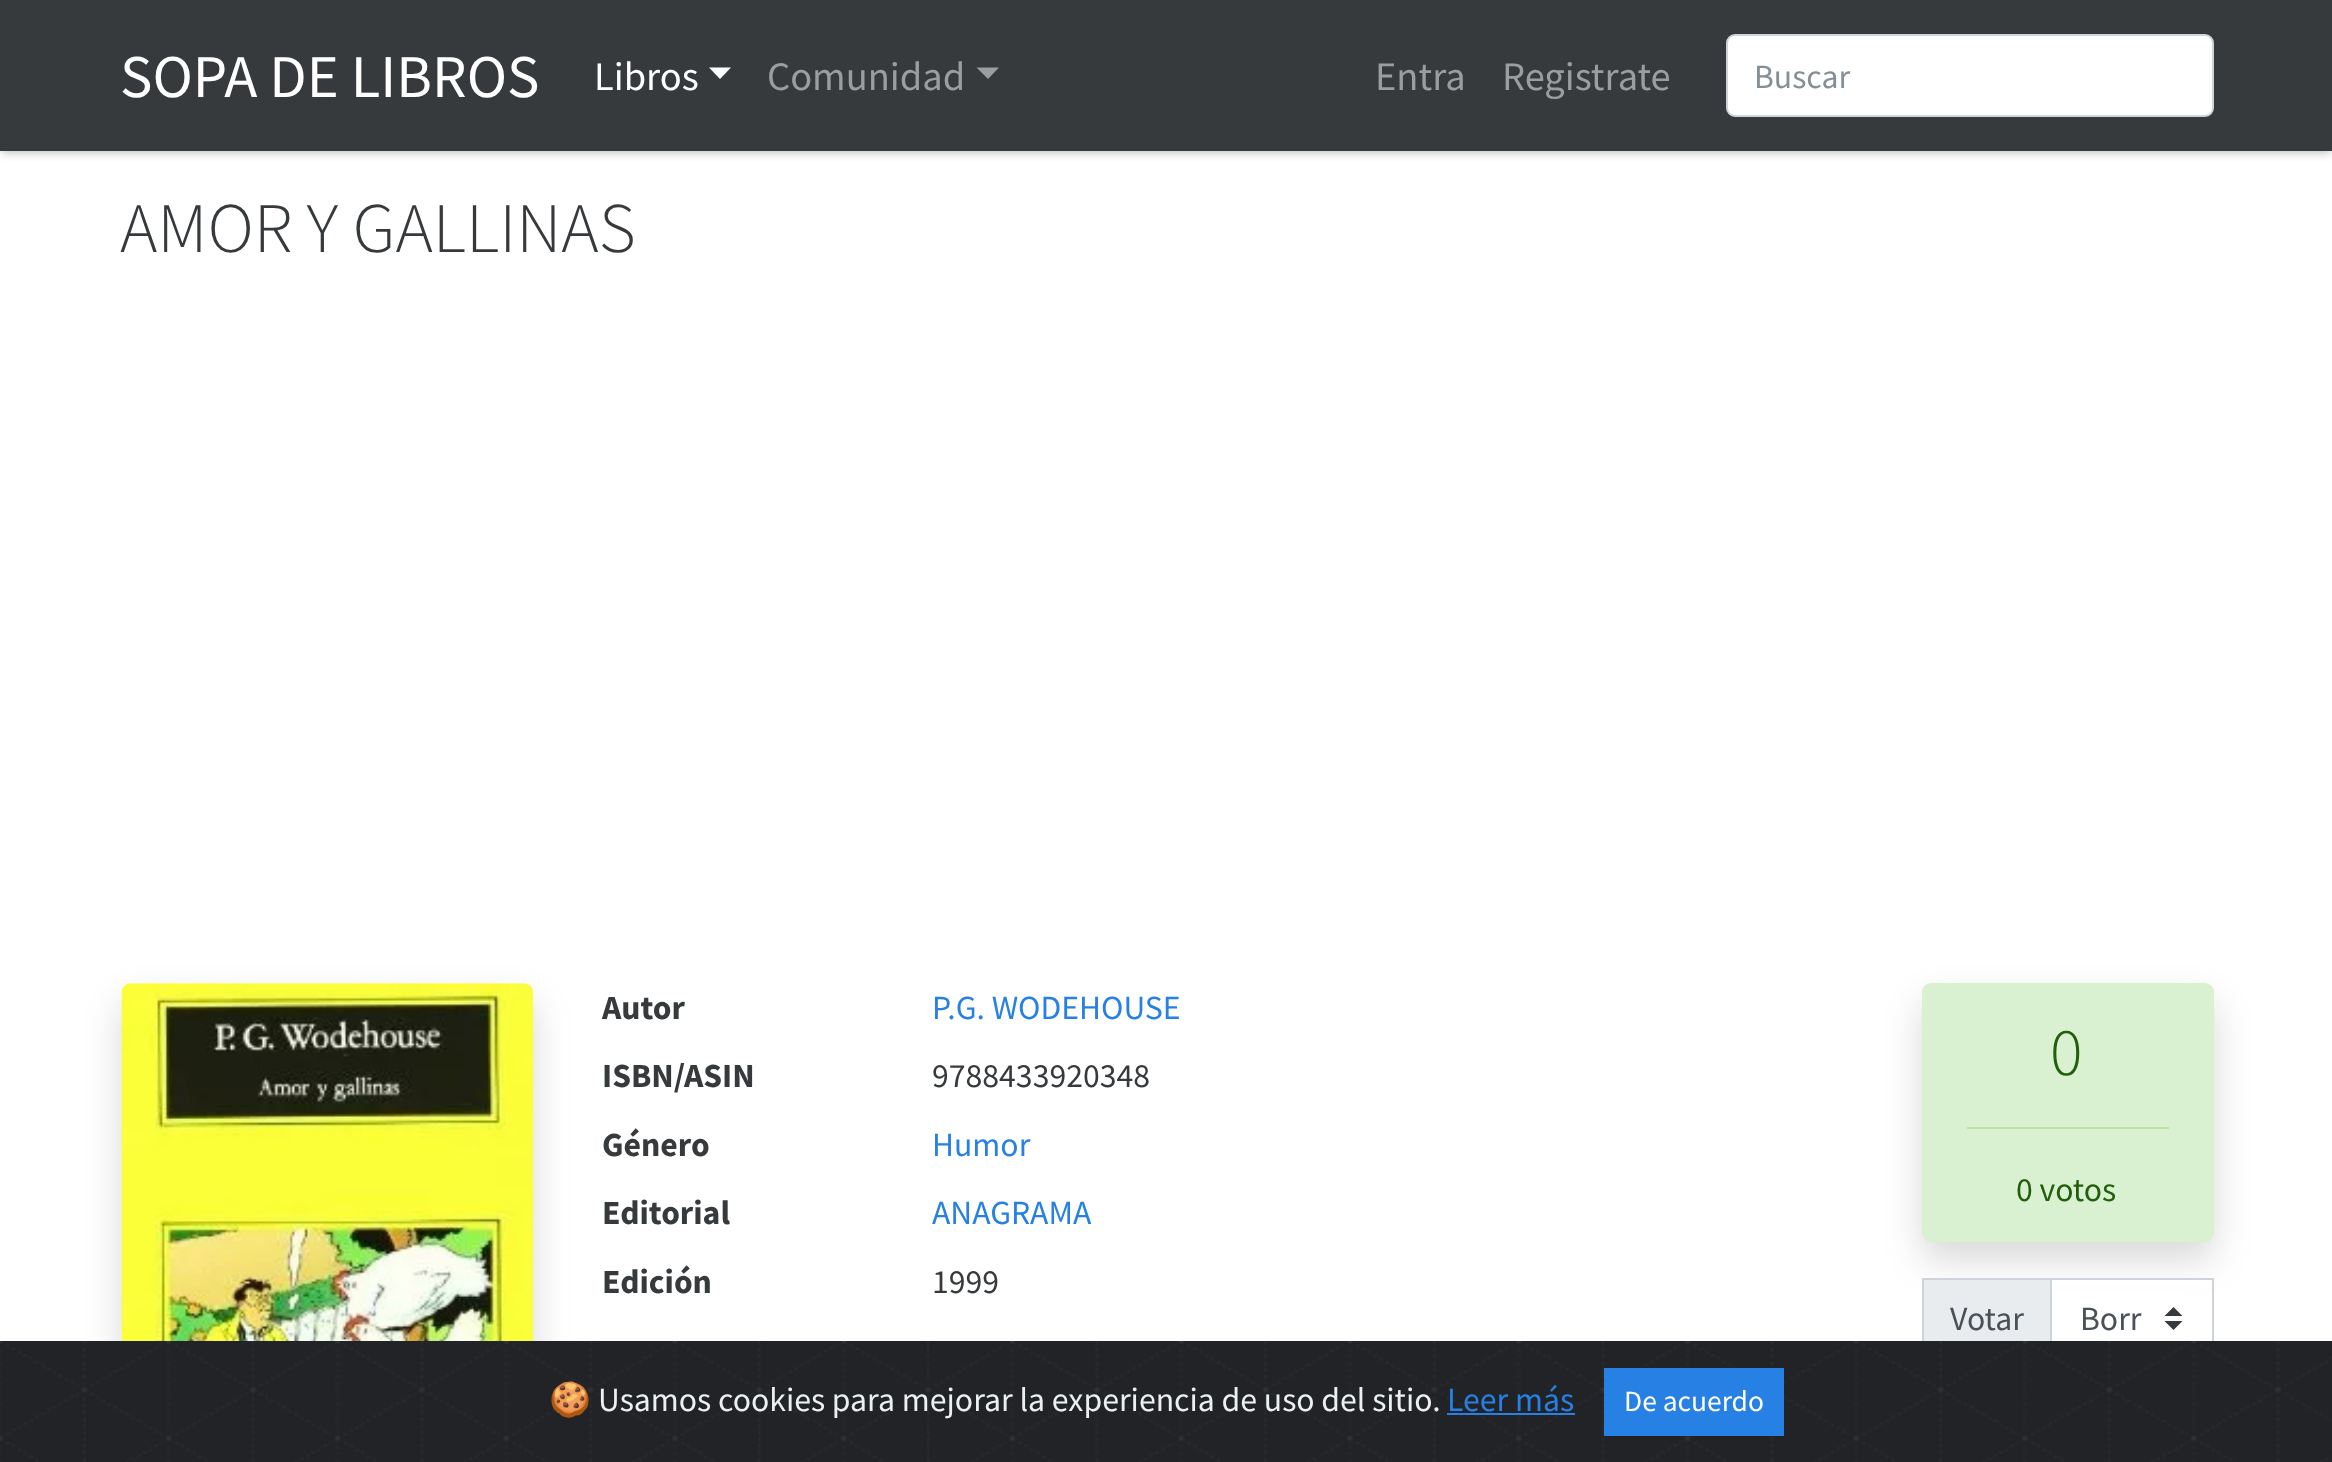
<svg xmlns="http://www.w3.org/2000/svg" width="2332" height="1462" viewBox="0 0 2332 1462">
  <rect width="100%" height="100%" fill="#fff"/>
  <path d="M2 7h2329v146H2z" fill="#00000040" filter="blur(4.5px)"/>
  <path d="M0 0h2332v151H0z" fill="#373a3c"/>
  <path d="M709 67.5H731L720 79Z" fill="#fff"/>
  <path d="M976.5 67.5H999L988 79Z" fill="#9b9d9e"/>
  <rect x="1727" y="35" width="486" height="81" rx="8" fill="#fff" stroke="#ced4da" stroke-width="2"/>
  <rect x="122" y="1001" width="411" height="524" rx="9" fill="#00000026" filter="blur(18px)"/>
  <image x="121" y="983" width="413" height="358" href="img/1.png"/>
  <rect x="1922" y="1001" width="292" height="259" rx="9" fill="#00000026" filter="blur(18px)"/>
  <rect x="1922" y="983" width="292" height="259" rx="9" fill="#d9f0d1"/>
  <path d="M1967 1127h202v2H1967z" fill="#b9e5ab"/>
  <path d="M1924 1280h126v61H1924z" fill="#e9ecef"/>
  <path d="M1923 1279h128v81H1923z" fill="none" stroke="#ced4da" stroke-width="2"/>
  <path d="M2052 1280h159v7H2052z" fill="#fff"/>
  <path d="M2173.5 1307L2164.5 1316H2182.5ZM2173.5 1330L2164.5 1321H2182.5Z" fill="#373a3c"/>
  <path d="M2051 1279h162v81H2051z" fill="none" stroke="#ced4da" stroke-width="2"/>
  <image x="0" y="1341" width="2332" height="121" href="img/2.png"/>
  <path d="M1447 1413h128v2H1447z" fill="#2780e3"/>
  <path d="M1604 1368h180v68H1604z" fill="#2780e3"/>
  <text x="120" y="97" font-family="Source Sans Pro" font-size="60.75" fill="#fff">SOPA DE LIBROS</text>
  <text x="594" y="90" font-family="Source Sans Pro" font-size="40.5" fill="#fff">Libros</text>
  <g font-family="Source Sans Pro" font-size="40.5" fill="#9b9d9e">
    <text x="767" y="90">Comunidad</text>
    <text x="1375" y="90">Entra</text>
    <text x="1502" y="90">Registrate</text>
  </g>
  <text x="1754" y="88" font-family="Source Sans Pro" font-size="33.75" fill="#868e96">Buscar</text>
  <text x="120" y="252" font-family="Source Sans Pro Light" font-size="71" font-weight="300" fill="#373a3c">AMOR Y GALLINAS</text>
  <text x="602" y="1019" font-family="Source Sans Pro" font-size="33.75" font-weight="bold" fill="#373a3c">Autor</text>
  <text x="932" y="1019" font-family="Source Sans Pro" font-size="33.75" fill="#2780e3">P.G. WODEHOUSE</text>
  <text x="602" y="1087" font-family="Source Sans Pro" font-size="33.75" font-weight="bold" fill="#373a3c">ISBN/ASIN</text>
  <text x="932" y="1087" font-family="Source Sans Pro" font-size="33.75" fill="#373a3c">9788433920348</text>
  <text x="602" y="1156" font-family="Source Sans Pro" font-size="33.75" font-weight="bold" fill="#373a3c">Género</text>
  <text x="932" y="1156" font-family="Source Sans Pro" font-size="33.75" fill="#2780e3">Humor</text>
  <text x="602" y="1224" font-family="Source Sans Pro" font-size="33.75" font-weight="bold" fill="#373a3c">Editorial</text>
  <text x="932" y="1224" font-family="Source Sans Pro" font-size="33.75" fill="#2780e3">ANAGRAMA</text>
  <text x="602" y="1293" font-family="Source Sans Pro" font-size="33.75" font-weight="bold" fill="#373a3c">Edición</text>
  <text x="932" y="1293" font-family="Source Sans Pro" font-size="33.75" fill="#373a3c">1999</text>
  <text x="2050" y="1075" font-family="Source Sans Pro Light" font-size="68" font-weight="300" fill="#215f0c">0</text>
  <text x="2016" y="1201" font-family="Source Sans Pro" font-size="33.75" fill="#215f0c">0 votos</text>
  <g font-family="Source Sans Pro" font-size="33.75" fill="#495057">
    <text x="1950" y="1330">Votar</text>
    <text x="2080" y="1330">Borr</text>
  </g>
  <text x="549" y="1411" font-family="Noto Color Emoji" font-size="33.75" fill="#ecf0f1">🍪</text>
  <text x="598" y="1411" font-family="Source Sans Pro" font-size="33.75" fill="#ecf0f1">Usamos cookies para mejorar la experiencia de uso del sitio.</text>
  <text x="1447" y="1411" font-family="Source Sans Pro" font-size="33.75" fill="#2780e3">Leer más</text>
  <text x="1624" y="1411" font-family="Source Sans Pro" font-size="29.5" fill="#fff">De acuerdo</text>
</svg>
